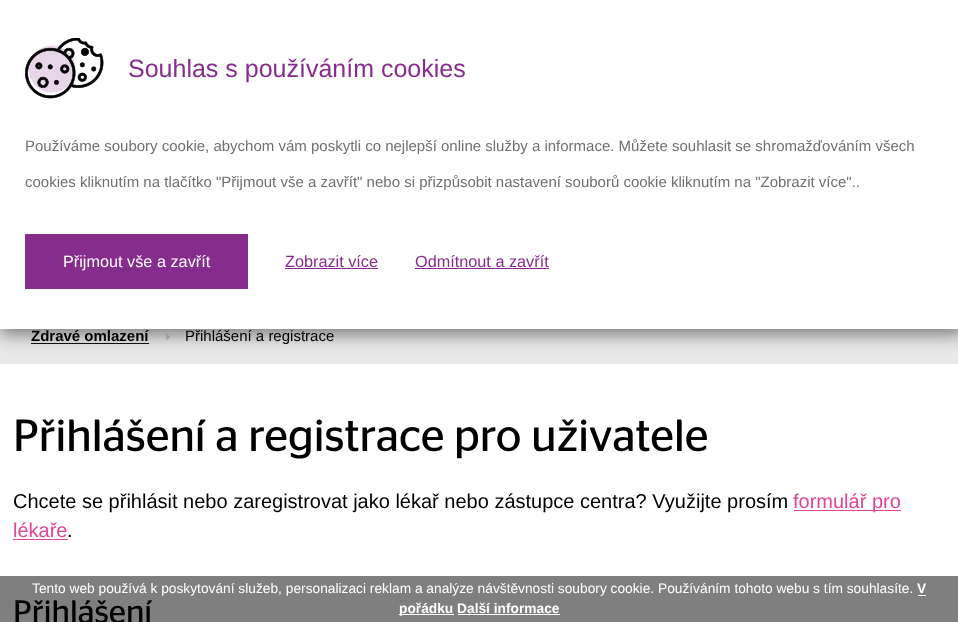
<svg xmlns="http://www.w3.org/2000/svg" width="958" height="622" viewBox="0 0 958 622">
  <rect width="100%" height="100%" fill="#fff"/>
  <path d="M0 329h958v35H0z" fill="#e8e8e8"/>
  <path d="M31 343h118v1H31z" fill="#000"/>
  <image x="166" y="333" width="4" height="7" href="img/2.png"/>
  <path d="M0 0h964v334H0z" fill="#747474" filter="blur(9px)"/>
  <path d="M0 0h958v329H0z" fill="#fff"/>
  <image x="25" y="38" width="79" height="61" href="img/1.png"/>
  <path d="M25 234h223v55H25z" fill="#862c8d"/>
  <path d="M285 268h93v1H285z" fill="#862c8d"/>
  <path d="M415 268h134v1H415z" fill="#862c8d"/>
  <path d="M794 510h107v1H794z" fill="#e24298"/>
  <path d="M13 539h55v1H13z" fill="#e24298"/>
  <text x="128" y="77" font-family="Liberation Sans" font-size="25" fill="#862c8d">Souhlas s používáním cookies</text>
  <g font-family="Liberation Sans" font-size="15" fill="#707070">
    <text x="25" y="151">Používáme soubory cookie, abychom vám poskytli co nejlepší online služby a informace. Můžete souhlasit se shromažďováním všech</text>
    <text x="25" y="187">cookies kliknutím na tlačítko "Přijmout vše a zavřít" nebo si přizpůsobit nastavení souborů cookie kliknutím na "Zobrazit více"..</text>
  </g>
  <text x="63" y="267" font-family="Liberation Sans" font-size="16.25" fill="#fff">Přijmout vše a zavřít</text>
  <g font-family="Liberation Sans" font-size="16.25" fill="#862c8d">
    <text x="285" y="267">Zobrazit více</text>
    <text x="415" y="267">Odmítnout a zavřít</text>
  </g>
  <text x="31" y="341" font-family="Liberation Sans" font-size="15" font-weight="bold" fill="#000">Zdravé omlazení</text>
  <text x="185" y="341" font-family="Liberation Sans" font-size="15" fill="#000">Přihlášení a registrace</text>
  <text x="13" y="451" font-family="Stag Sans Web" font-size="45" fill="#000">Přihlášení a registrace pro uživatele</text>
  <text x="13" y="508" font-family="Liberation Sans" font-size="20" fill="#000">Chcete se přihlásit nebo zaregistrovat jako lékař nebo zástupce centra? Využijte prosím</text>
  <g font-family="Liberation Sans" font-size="20" fill="#e24298">
    <text x="793" y="508">formulář pro</text>
    <text x="13" y="537">lékaře</text>
  </g>
  <text x="67" y="537" font-family="Liberation Sans" font-size="20" fill="#000">.</text>
  <text x="13" y="623" font-family="Stag Sans Web" font-size="32.5" fill="#000">Přihlášení</text>
  <path d="M0 576h958v46H0z" fill="#00000080"/>
  <text x="32" y="593" font-family="Liberation Sans" font-size="13.75" fill="#fff">Tento web používá k poskytování služeb, personalizaci reklam a analýze návštěvnosti soubory cookie. Používáním tohoto webu s tím souhlasíte.</text>
  <text x="917" y="593" font-family="Liberation Sans" font-size="13.75" font-weight="bold" fill="#fff">V</text>
  <path d="M918 595h8v1H918z" fill="#fff"/>
  <path d="M399 614h55v1H399z" fill="#fff"/>
  <text x="399" y="613" font-family="Liberation Sans" font-size="13.75" font-weight="bold" fill="#fff">pořádku Další informace</text>
  <path d="M458 614h102v1H458z" fill="#fff"/>
</svg>
